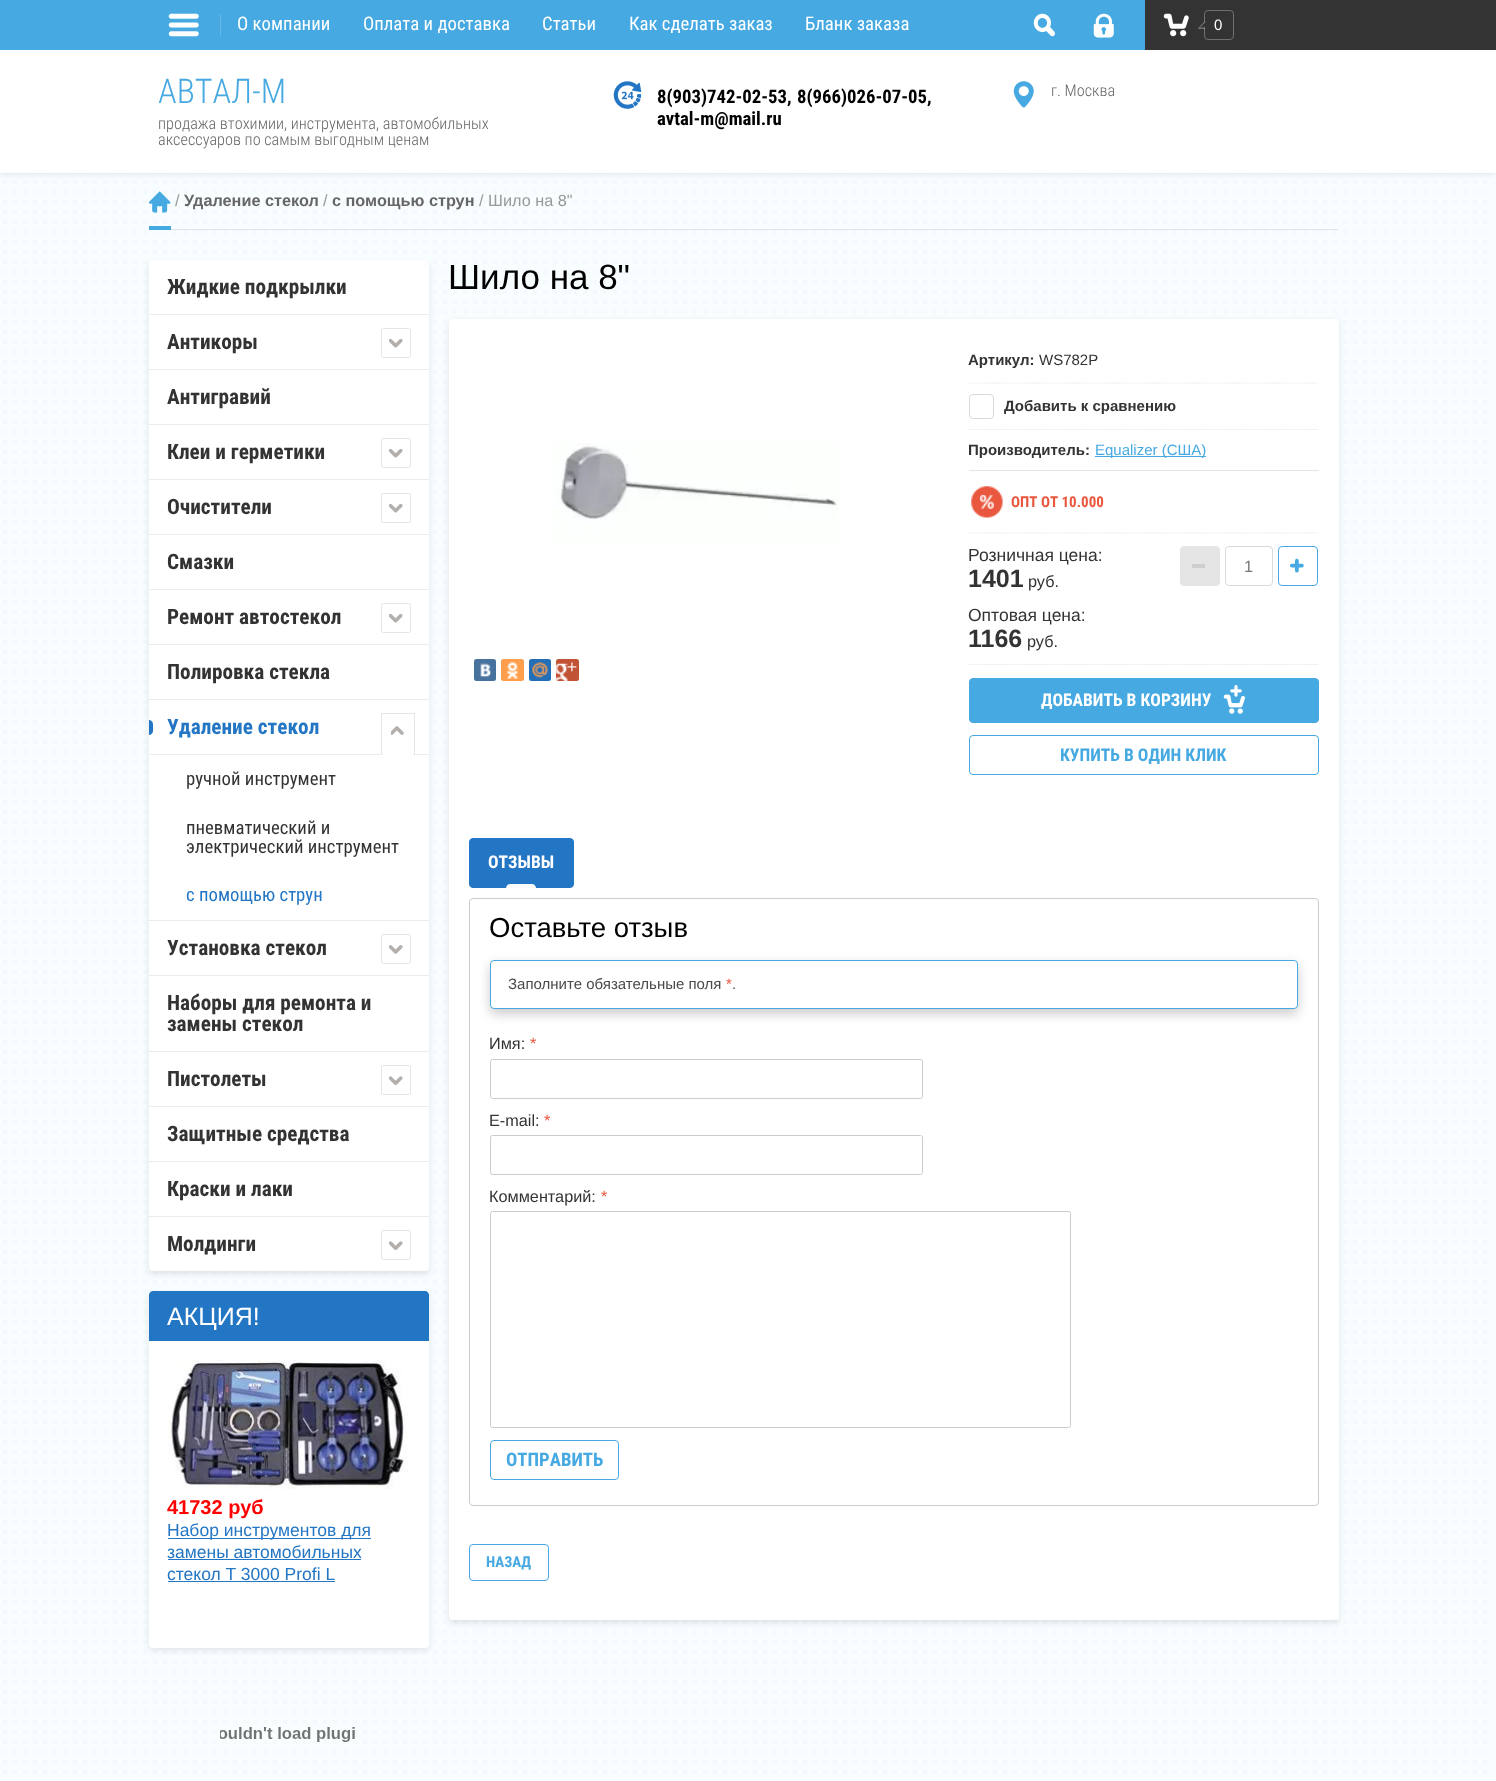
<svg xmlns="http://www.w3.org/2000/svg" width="1496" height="1781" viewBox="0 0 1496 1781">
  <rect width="100%" height="100%" fill="#f8feff"/>
  <image x="3" y="173" width="1491" height="1608" href="img/1.png"/>
  <path d="M0 51h1496v123H0z" fill="#0000001a" filter="blur(3px)"/>
  <path d="M0 0h1145v50H0z" fill="#46a9e2"/>
  <image x="168" y="13" width="31" height="24" href="img/2.png"/>
  <path d="M220 14h1v22H220z" fill="#65b8e7"/>
  <image x="1033" y="13" width="22" height="24" href="img/3.png"/>
  <image x="1093" y="13" width="21" height="25" href="img/4.png"/>
  <path d="M1145 0h351v50H1145z" fill="#333"/>
  <image x="1163" y="13" width="26" height="24" href="img/5.png"/>
  <rect x="1204.5" y="10.5" width="29" height="29" rx="3.5" fill="none" stroke="#707070"/>
  <path d="M1205 21V29L1201 25Z" fill="#ffffff4d"/>
  <path d="M1205 29H1197.5L1201 25Z" fill="#ffffff4d"/>
  <path d="M1205 22.5V27.5L1202.5 25Z" fill="#333"/>
  <path d="M1205 27.5H1200L1202.5 25Z" fill="#333"/>
  <path d="M0 50h1496v123H0z" fill="#fff"/>
  <image x="613" y="81" width="29" height="28" href="img/6.png"/>
  <image x="1013" y="81" width="21" height="27" href="img/7.png"/>
  <path d="M171 229h1167v1H171z" fill="#dfe5e6"/>
  <image x="149" y="191" width="22" height="22" href="img/8.png"/>
  <path d="M149 226h22v4H149z" fill="#46a9e2"/>
  <rect x="149" y="263" width="280" height="1011" rx="4" fill="#0000001a" filter="blur(3px)"/>
  <rect x="149" y="260" width="280" height="1011" rx="4" fill="#fff"/>
  <path d="M149 314h280v1H149z" fill="#ebebeb"/>
  <image x="389" y="339" width="14" height="9" href="img/9.png"/>
  <rect x="381.5" y="328.5" width="29" height="29" rx="2" fill="none" stroke="#e5e5e5"/>
  <path d="M149 369h280v1H149z" fill="#ebebeb"/>
  <path d="M149 424h280v1H149z" fill="#ebebeb"/>
  <image x="389" y="449" width="14" height="9" href="img/9.png"/>
  <rect x="381.5" y="438.5" width="29" height="29" rx="2" fill="none" stroke="#e5e5e5"/>
  <path d="M149 479h280v1H149z" fill="#ebebeb"/>
  <image x="389" y="504" width="14" height="9" href="img/9.png"/>
  <rect x="381.5" y="493.5" width="29" height="29" rx="2" fill="none" stroke="#e5e5e5"/>
  <path d="M149 534h280v1H149z" fill="#ebebeb"/>
  <path d="M149 589h280v1H149z" fill="#ebebeb"/>
  <image x="389" y="614" width="14" height="9" href="img/9.png"/>
  <rect x="381.5" y="603.5" width="29" height="29" rx="2" fill="none" stroke="#e5e5e5"/>
  <path d="M149 644h280v1H149z" fill="#ebebeb"/>
  <path d="M149 699h280v1H149z" fill="#ebebeb"/>
  <path d="M149 720C151 720 153 722 153 724V731C153 733 151 735 149 735Z" fill="#2376c4"/>
  <image x="391" y="726" width="13" height="9" href="img/10.png"/>
  <path d="M149 754h280v1H149z" fill="#ebebeb"/>
  <path d="M381 713h1v42H381z" fill="#e5e5e5"/>
  <path d="M381 713h34v1H381z" fill="#e5e5e5"/>
  <path d="M414 713h1v42H414z" fill="#e5e5e5"/>
  <path d="M382 754h32v1H382z" fill="#fdffff"/>
  <path d="M149 920h280v1H149z" fill="#ebebeb"/>
  <image x="389" y="945" width="14" height="9" href="img/11.png"/>
  <rect x="381.5" y="934.5" width="29" height="29" rx="2" fill="none" stroke="#e5e5e5"/>
  <path d="M149 975h280v1H149z" fill="#ebebeb"/>
  <path d="M149 1051h280v1H149z" fill="#ebebeb"/>
  <image x="389" y="1076" width="14" height="9" href="img/12.png"/>
  <rect x="381.5" y="1065.5" width="29" height="29" rx="2" fill="none" stroke="#e5e5e5"/>
  <path d="M149 1106h280v1H149z" fill="#ebebeb"/>
  <path d="M149 1161h280v1H149z" fill="#ebebeb"/>
  <path d="M149 1216h280v1H149z" fill="#ebebeb"/>
  <image x="389" y="1241" width="14" height="9" href="img/12.png"/>
  <rect x="381.5" y="1230.5" width="29" height="29" rx="2" fill="none" stroke="#e5e5e5"/>
  <rect x="149" y="1294" width="280" height="356" rx="4" fill="#0000001a" filter="blur(3px)"/>
  <rect x="149" y="1291" width="280" height="357" rx="4" fill="#fff"/>
  <path d="M153 1291H425C427 1291 429 1293 429 1295V1341H149V1295C149 1293 151 1291 153 1291Z" fill="#2376c4"/>
  <image x="168" y="1360" width="241" height="129" href="img/13.png"/>
  <path d="M168 1538h203v1H168z" fill="#2376c4"/>
  <path d="M168 1559h193v1H168z" fill="#2376c4"/>
  <path d="M168 1581h167v1H168z" fill="#2376c4"/>
  <image x="220" y="1727" width="135" height="15" href="img/14.png"/>
  <rect x="449" y="321" width="890" height="1302" rx="4" fill="#0000001a" filter="blur(3px)"/>
  <rect x="449" y="319" width="890" height="1301" rx="4" fill="#fff"/>
  <image x="553" y="443" width="285" height="101" href="img/15.png"/>
  <rect x="474" y="659" width="22" height="22" rx="2.5" fill="#48729e"/>
  <image x="480" y="663" width="12" height="14" href="img/16.png"/>
  <rect x="501" y="659" width="23" height="22" rx="2.5" fill="#ff9f4d"/>
  <image x="507" y="662" width="11" height="17" href="img/17.png"/>
  <rect x="529" y="659" width="22" height="22" rx="2.5" fill="#226eb7"/>
  <image x="532" y="662" width="16" height="16" href="img/18.png"/>
  <rect x="556" y="659" width="23" height="22" rx="2.5" fill="#c25234"/>
  <image x="556" y="662" width="21" height="19" href="img/19.png"/>
  <path d="M969 383H1319" fill="none" stroke="#e5e5e5" stroke-width="1.2" stroke-dasharray="1.25 1.25"/>
  <rect x="969.5" y="394.5" width="24" height="24" rx="3.5" fill="none" stroke="#d9d9d9"/>
  <path d="M969 470h350v1H969z" fill="#e5e5e5"/>
  <path d="M969 429.5H1319" fill="none" stroke="#e5e5e5" stroke-width="1.2" stroke-dasharray="1.25 1.25"/>
  <path d="M1095 456h111v1H1095z" fill="#46a9e2"/>
  <path d="M969 533H1319" fill="none" stroke="#e5e5e5" stroke-width="1.2" stroke-dasharray="1.25 1.25"/>
  <image x="971" y="486" width="32" height="32" href="img/20.png"/>
  <path d="M969 664.5H1319" fill="none" stroke="#e5e5e5" stroke-width="1.2" stroke-dasharray="1.25 1.25"/>
  <rect x="1180.5" y="546.5" width="39" height="39" rx="3.5" fill="#e5e5e5" stroke="#e5e5e5"/>
  <path d="M1192 564h13v4H1192z" fill="#cecece"/>
  <rect x="1225.5" y="546.5" width="47" height="39" rx="3.5" fill="none" stroke="#d9d9d9"/>
  <rect x="1278.5" y="546.5" width="39" height="39" rx="3.5" fill="none" stroke="#46a9e2"/>
  <image x="1290" y="558" width="14" height="15" href="img/21.png"/>
  <rect x="969.5" y="678.5" width="349" height="44" rx="3.5" fill="#46a9e2" stroke="#46a9e2"/>
  <image x="1223" y="685" width="22" height="29" href="img/22.png"/>
  <rect x="969.5" y="735.5" width="349" height="39" rx="3.5" fill="none" stroke="#46a9e2"/>
  <rect x="469.5" y="838.5" width="104" height="49" rx="3.5" fill="#2376c4" stroke="#2376c4"/>
  <path d="M510 884H532C534 884 536 886 536 888H506C506 886 508 884 510 884Z" fill="#fafafa"/>
  <rect x="469.5" y="898.5" width="849" height="607" rx="3.5" fill="none" stroke="#ccc"/>
  <rect x="490" y="965" width="808" height="49" rx="4" fill="#00000033" filter="blur(6px)"/>
  <rect x="490.5" y="960.5" width="807" height="48" rx="3.5" fill="#fff" stroke="#46a9e2"/>
  <rect x="490.5" y="1059.5" width="432" height="39" rx="2" fill="none" stroke="#ccc"/>
  <rect x="490.5" y="1135.5" width="432" height="39" rx="2" fill="none" stroke="#ccc"/>
  <rect x="490.5" y="1211.5" width="580" height="216" rx="2" fill="none" stroke="#ccc"/>
  <rect x="490.5" y="1440.5" width="128" height="39" rx="3.5" fill="none" stroke="#46a9e2"/>
  <rect x="469.5" y="1544.5" width="79" height="36" rx="3.5" fill="none" stroke="#46a9e2"/>
  <g font-family="Roboto Condensed" font-size="18.75" fill="#fff">
    <text x="237" y="30">О компании</text>
    <text x="363" y="30">Оплата и доставка</text>
    <text x="542" y="30">Статьи</text>
    <text x="629" y="30">Как сделать заказ</text>
    <text x="805" y="30">Бланк заказа</text>
  </g>
  <text x="1214" y="30" font-family="Liberation Sans" font-size="15" fill="#fff">0</text>
  <text x="158" y="103" font-family="Roboto Condensed" font-size="34" font-weight="300" fill="#46a9e2">АВТАЛ-М</text>
  <g font-family="Roboto Condensed" font-size="16.25" font-weight="300" fill="#666">
    <text x="158" y="129">продажа втохимии, инструмента, автомобильных</text>
    <text x="158" y="145">аксессуаров по самым выгодным ценам</text>
  </g>
  <g font-family="Roboto Condensed" font-size="18.75" font-weight="bold" fill="#000">
    <text x="657" y="103">8(903)742-02-53,</text>
    <text x="797" y="103">8(966)026-07-05,</text>
    <text x="657" y="125">avtal-m@mail.ru</text>
  </g>
  <text x="1051" y="96" font-family="Roboto Condensed" font-size="16.25" font-weight="300" fill="#666">г. Москва</text>
  <text x="175" y="206" font-family="Liberation Sans" font-size="16.25" fill="#999">/</text>
  <text x="184" y="206" font-family="Liberation Sans" font-size="16.25" font-weight="bold" fill="#666">Удаление стекол</text>
  <text x="323" y="206" font-family="Liberation Sans" font-size="16.25" fill="#999">/</text>
  <text x="332" y="206" font-family="Liberation Sans" font-size="16.25" font-weight="bold" fill="#666">с помощью струн</text>
  <text x="479" y="206" font-family="Liberation Sans" font-size="16.25" fill="#999">/ Шило на 8"</text>
  <g font-family="Roboto Condensed" font-size="21.25" font-weight="bold" fill="#333">
    <text x="167" y="294">Жидкие подкрылки</text>
    <text x="167" y="349">Антикоры</text>
    <text x="167" y="404">Антигравий</text>
    <text x="167" y="459">Клеи и герметики</text>
    <text x="167" y="514">Очистители</text>
    <text x="167" y="569">Смазки</text>
    <text x="167" y="624">Ремонт автостекол</text>
    <text x="167" y="679">Полировка стекла</text>
  </g>
  <text x="167" y="734" font-family="Roboto Condensed" font-size="21.25" font-weight="bold" fill="#2376c4">Удаление стекол</text>
  <g font-family="Roboto Condensed" font-size="18.75" fill="#333">
    <text x="186" y="785">ручной инструмент</text>
    <text x="186" y="834">пневматический и</text>
    <text x="186" y="853">электрический инструмент</text>
  </g>
  <text x="186" y="901" font-family="Roboto Condensed" font-size="18.75" fill="#2376c4">с помощью струн</text>
  <g font-family="Roboto Condensed" font-size="21.25" font-weight="bold" fill="#333">
    <text x="167" y="955">Установка стекол</text>
    <text x="167" y="1010">Наборы для ремонта и</text>
    <text x="167" y="1031">замены стекол</text>
    <text x="167" y="1086">Пистолеты</text>
    <text x="167" y="1141">Защитные средства</text>
    <text x="167" y="1196">Краски и лаки</text>
    <text x="167" y="1251">Молдинги</text>
  </g>
  <text x="167" y="1325" font-family="Liberation Sans" font-size="25" fill="#fff">АКЦИЯ!</text>
  <text x="167" y="1514" font-family="Liberation Sans" font-size="20" font-weight="bold" fill="#f00">41732 руб</text>
  <g font-family="Liberation Sans" font-size="17.5" fill="#2376c4">
    <text x="167" y="1536">Набор инструментов для</text>
    <text x="167" y="1558">замены автомобильных</text>
    <text x="167" y="1580">стекол T 3000 Profi L</text>
  </g>
  <text x="448" y="289" font-family="Liberation Sans" font-size="35" fill="#000">Шило на 8"</text>
  <text x="968" y="365" font-family="Liberation Sans" font-size="15" font-weight="bold" fill="#333">Артикул:</text>
  <text x="1039" y="365" font-family="Liberation Sans" font-size="15" fill="#333">WS782P</text>
  <g font-family="Liberation Sans" font-size="15" font-weight="bold" fill="#333">
    <text x="1004" y="411">Добавить к сравнению</text>
    <text x="968" y="455">Производитель:</text>
  </g>
  <text x="1095" y="455" font-family="Liberation Sans" font-size="15" fill="#46a9e2">Equalizer (США)</text>
  <text x="1011" y="507" font-family="Roboto Condensed" font-size="15" font-weight="bold" fill="#e9573e">ОПТ ОТ 10.000</text>
  <text x="968" y="561" font-family="Liberation Sans" font-size="17.5" fill="#333">Розничная цена:</text>
  <text x="968" y="587" font-family="Liberation Sans" font-size="25" font-weight="bold" fill="#333">1401</text>
  <text x="1028" y="587" font-family="Liberation Sans" font-size="16.25" fill="#333">руб.</text>
  <text x="968" y="621" font-family="Liberation Sans" font-size="17.5" fill="#333">Оптовая цена:</text>
  <text x="968" y="647" font-family="Liberation Sans" font-size="25" font-weight="bold" fill="#333">1166</text>
  <text x="1027" y="647" font-family="Liberation Sans" font-size="16.25" fill="#333">руб.</text>
  <text x="1244" y="572" font-family="Liberation Sans" font-size="16.25" fill="#777">1</text>
  <text x="1041" y="706" font-family="Roboto Condensed" font-size="17.5" font-weight="bold" fill="#fff">ДОБАВИТЬ В КОРЗИНУ</text>
  <text x="1060" y="761" font-family="Roboto Condensed" font-size="17.5" font-weight="bold" fill="#46a9e2">КУПИТЬ В ОДИН КЛИК</text>
  <text x="488" y="868" font-family="Roboto Condensed" font-size="17.5" font-weight="bold" fill="#fff">ОТЗЫВЫ</text>
  <text x="489" y="937" font-family="Liberation Sans" font-size="27.5" fill="#000">Оставьте отзыв</text>
  <text x="508" y="989" font-family="Liberation Sans" font-size="15" fill="#494949">Заполните обязательные поля</text>
  <text x="726" y="989" font-family="Liberation Sans" font-size="15" fill="#e9573e">*</text>
  <text x="732" y="989" font-family="Liberation Sans" font-size="15" fill="#494949">.</text>
  <text x="489" y="1049" font-family="Liberation Sans" font-size="16.25" fill="#333">Имя:</text>
  <text x="530" y="1049" font-family="Liberation Sans" font-size="16.25" fill="#e9573e">*</text>
  <text x="489" y="1126" font-family="Liberation Sans" font-size="16.25" fill="#333">E-mail:</text>
  <text x="544" y="1126" font-family="Liberation Sans" font-size="16.25" fill="#e9573e">*</text>
  <text x="489" y="1202" font-family="Liberation Sans" font-size="16.25" fill="#333">Комментарий:</text>
  <text x="601" y="1202" font-family="Liberation Sans" font-size="16.25" fill="#e9573e">*</text>
  <text x="506" y="1466" font-family="Roboto Condensed" font-size="18.75" font-weight="bold" fill="#46a9e2">ОТПРАВИТЬ</text>
  <text x="486" y="1567" font-family="Roboto Condensed" font-size="15" font-weight="bold" fill="#46a9e2">НАЗАД</text>
</svg>
